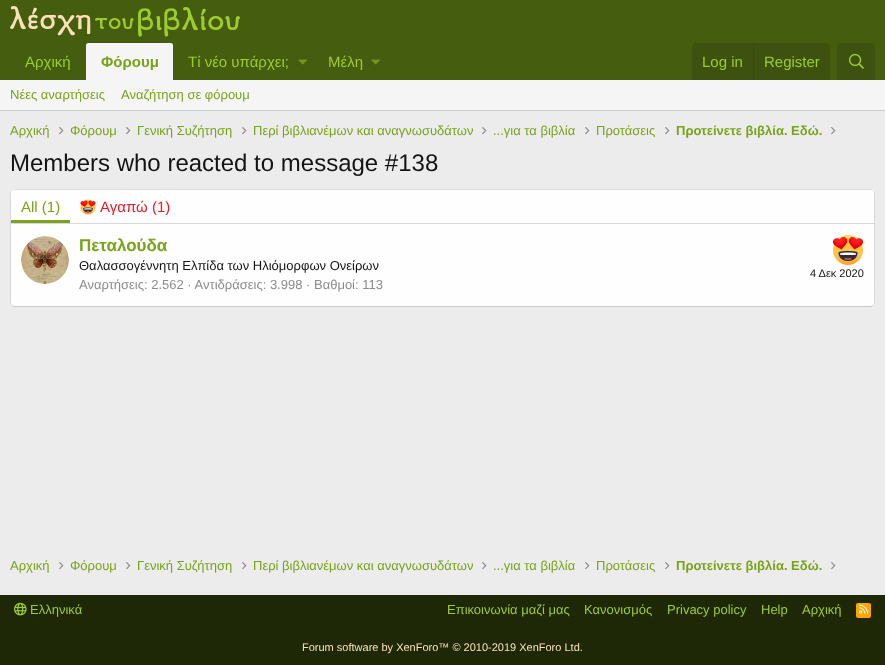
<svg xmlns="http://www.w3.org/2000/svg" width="885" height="665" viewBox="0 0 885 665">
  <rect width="100%" height="100%" fill="#ececec"/>
  <path d="M0 0h885v80H0z" fill="#455d0f"/>
  <image x="10" y="6" width="230" height="31" href="img/1.png"/>
  <path d="M88 43H171C172 43 173 44 173 45V80H86V45C86 44 87 43 88 43Z" fill="#f5f5f5"/>
  <image x="298" y="59" width="9" height="6" href="img/2.png"/>
  <image x="371" y="59" width="9" height="6" href="img/2.png"/>
  <path d="M696 43H826C828 43 830 45 830 47V80H692V47C692 45 694 43 696 43Z" fill="#3e5210"/>
  <path d="M753 43h1v37H753z" fill="#384911"/>
  <path d="M841 43H871C873 43 875 45 875 47V80H837V47C837 45 839 43 841 43Z" fill="#3e5210"/>
  <image x="849" y="53" width="15" height="16" href="img/3.png"/>
  <path d="M0 80h885v30H0z" fill="#f5f5f5"/>
  <path d="M0 110h885v1H0z" fill="#cbcbcb"/>
  <image x="59" y="127" width="5" height="8" href="img/4.png"/>
  <image x="126" y="127" width="5" height="8" href="img/4.png"/>
  <image x="242" y="127" width="5" height="8" href="img/4.png"/>
  <image x="482" y="127" width="5" height="8" href="img/4.png"/>
  <image x="585" y="127" width="5" height="8" href="img/4.png"/>
  <image x="665" y="127" width="5" height="8" href="img/4.png"/>
  <image x="831" y="127" width="5" height="8" href="img/4.png"/>
  <rect x="10" y="189" width="865" height="118" rx="4" fill="#fefefe"/>
  <path d="M11.5 190.5L14 189.5H871L873.5 190.5" fill="none" stroke="#dfdfdf"/>
  <path d="M873.5 190.5L874.5 192.5V284.5V303L873.5 305.5" fill="none" stroke="#d8d8d8"/>
  <path d="M873.5 305.5L871 306.5H14L11.5 305.5" fill="none" stroke="#cbcbcb"/>
  <path d="M11.5 305.5L10.5 303V192.5L11.5 190.5" fill="none" stroke="#d8d8d8"/>
  <path d="M14 190H871C872.5 190 874 191.5 874 193V224H11V193C11 191.5 12.5 190 14 190Z" fill="#fefefe"/>
  <path d="M11 223h863v1H11z" fill="#d8d8d8"/>
  <path d="M11 220h59v3H11z" fill="#7aa21b"/>
  <image x="80" y="199" width="16" height="16" href="img/5.png"/>
  <image x="21" y="236" width="48" height="48" href="img/6.png"/>
  <image x="833" y="235" width="30" height="30" href="img/7.png"/>
  <image x="59" y="562" width="5" height="8" href="img/4.png"/>
  <image x="126" y="562" width="5" height="8" href="img/4.png"/>
  <image x="242" y="562" width="5" height="8" href="img/4.png"/>
  <image x="482" y="562" width="5" height="8" href="img/4.png"/>
  <image x="585" y="562" width="5" height="8" href="img/4.png"/>
  <image x="665" y="562" width="5" height="8" href="img/4.png"/>
  <image x="831" y="562" width="5" height="8" href="img/4.png"/>
  <path d="M0 595h885v70H0z" fill="#1e2806"/>
  <image x="14" y="602" width="13" height="14" href="img/8.png"/>
  <rect x="856" y="603" width="15" height="15" rx="2" fill="#ffa500"/>
  <image x="859" y="604" width="10" height="10" href="img/9.png"/>
  <text x="25" y="67" font-family="Liberation Sans" font-size="15" fill="#9dcc2f">Αρχική</text>
  <text x="101" y="67" font-family="Liberation Sans" font-size="15" font-weight="bold" fill="#7aa21b">Φόρουμ</text>
  <g font-family="Liberation Sans" font-size="15" fill="#9dcc2f">
    <text x="188" y="67">Τί νέο υπάρχει;</text>
    <text x="328" y="67">Μέλη</text>
    <text x="702" y="67">Log in</text>
    <text x="764" y="67">Register</text>
  </g>
  <g font-family="Liberation Sans" font-size="13" fill="#7aa21b">
    <text x="10" y="99">Νέες αναρτήσεις</text>
    <text x="121" y="99">Αναζήτηση σε φόρουμ</text>
    <text x="10" y="135">Αρχική</text>
    <text x="70" y="135">Φόρουμ</text>
    <text x="137" y="135">Γενική Συζήτηση</text>
    <text x="253" y="135">Περί βιβλιανέμων και αναγνωσυδάτων</text>
    <text x="493" y="135">...για τα βιβλία</text>
    <text x="596" y="135">Προτάσεις</text>
  </g>
  <text x="676" y="135" font-family="Liberation Sans" font-size="13" font-weight="bold" fill="#7aa21b">Προτείνετε βιβλία. Εδώ.</text>
  <text x="10" y="171" font-family="Liberation Sans" font-size="24" fill="#141414">Members who reacted to message #138</text>
  <text x="21" y="212" font-family="Liberation Sans" font-size="15" fill="#7aa21b">All (1)</text>
  <text x="100" y="212" font-family="Liberation Sans" font-size="15" fill="#e81c27">Αγαπώ (1)</text>
  <text x="79" y="251" font-family="Liberation Sans" font-size="17" font-weight="bold" fill="#7aa21b">Πεταλούδα</text>
  <text x="79" y="270" font-family="Liberation Sans" font-size="13" fill="#141414">Θαλασσογέννητη Ελπίδα των Ηλιόμορφων Ονείρων</text>
  <text x="810" y="277" font-family="Liberation Sans" font-size="11" fill="#141414">4 Δεκ 2020</text>
  <text x="79" y="289" font-family="Liberation Sans" font-size="13" fill="#8c8c8c">Αναρτήσεις: 2.562 · Αντιδράσεις: 3.998 · Βαθμοί: 113</text>
  <g font-family="Liberation Sans" font-size="13" fill="#7aa21b">
    <text x="10" y="570">Αρχική</text>
    <text x="70" y="570">Φόρουμ</text>
    <text x="137" y="570">Γενική Συζήτηση</text>
    <text x="253" y="570">Περί βιβλιανέμων και αναγνωσυδάτων</text>
    <text x="493" y="570">...για τα βιβλία</text>
    <text x="596" y="570">Προτάσεις</text>
  </g>
  <text x="676" y="570" font-family="Liberation Sans" font-size="13" font-weight="bold" fill="#7aa21b">Προτείνετε βιβλία. Εδώ.</text>
  <g font-family="Liberation Sans" font-size="13" fill="#9dcc2f">
    <text x="30" y="614">Ελληνικά</text>
    <text x="447" y="614">Επικοινωνία μαζί μας</text>
    <text x="584" y="614">Κανονισμός</text>
    <text x="667" y="614">Privacy policy</text>
    <text x="761" y="614">Help</text>
    <text x="802" y="614">Αρχική</text>
  </g>
  <text x="302" y="651" font-family="Liberation Sans" font-size="11" fill="#fae1b4">Forum software by XenForo™ © 2010-2019 XenForo Ltd.</text>
</svg>
